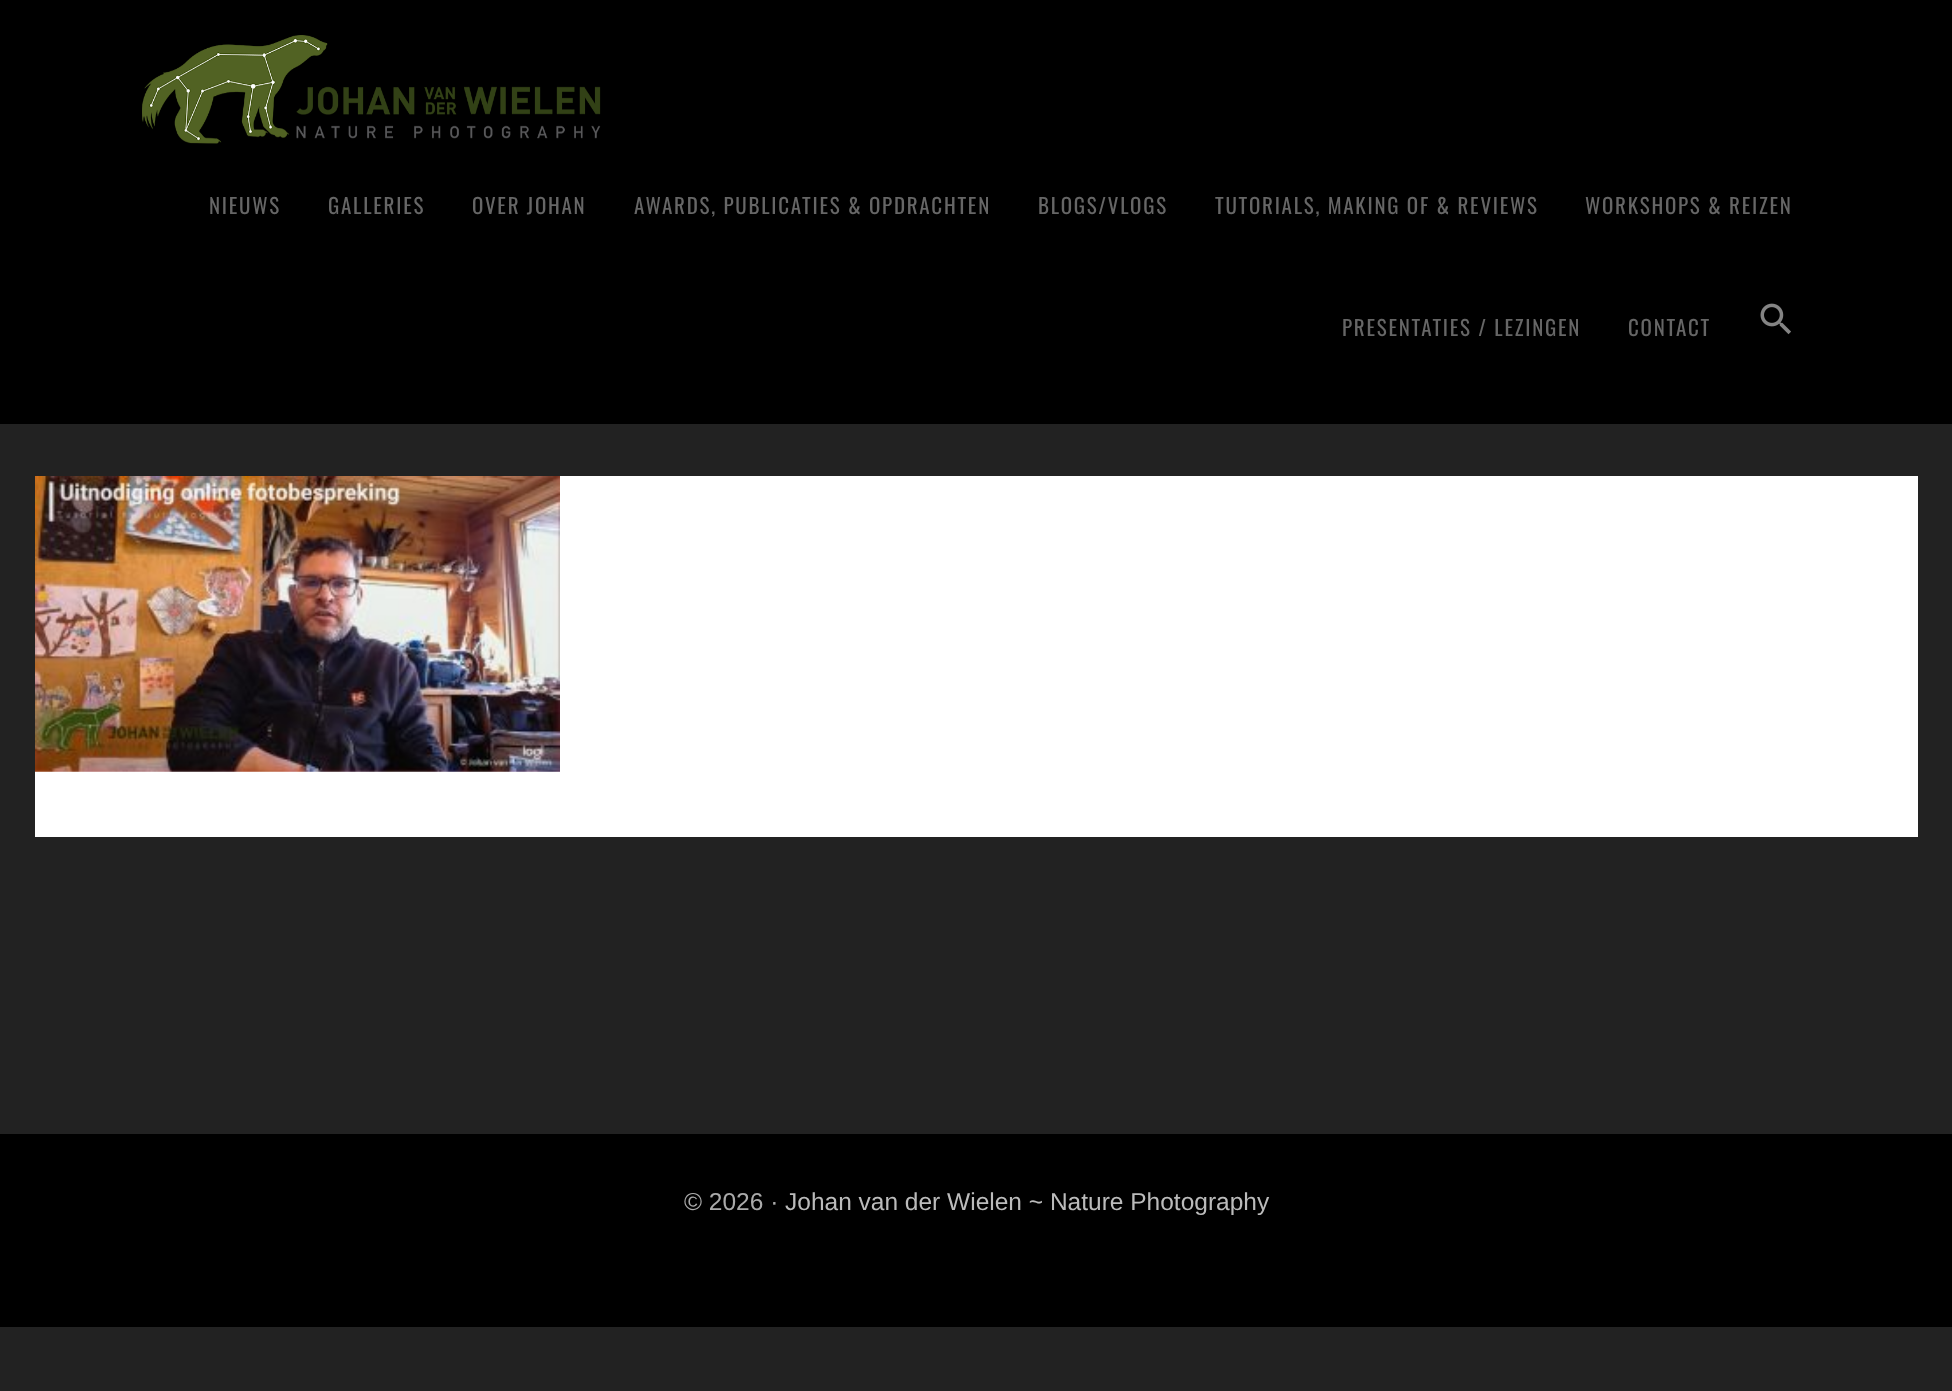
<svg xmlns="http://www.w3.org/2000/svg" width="1952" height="1391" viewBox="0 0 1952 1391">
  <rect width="100%" height="100%" fill="#222"/>
  <path d="M0 0h1952v424H0z" fill="#000"/>
  <image x="142" y="35" width="459" height="109" href="img/1.png"/>
  <image x="1760" y="303" width="31" height="32" href="img/2.png"/>
  <path d="M35 476h1883v361H35z" fill="#fff"/>
  <image x="35" y="476" width="525" height="296" href="img/3.png"/>
  <path d="M0 1134h1952v193H0z" fill="#000"/>
  <g font-family="Oswald" font-size="21" letter-spacing="1.75" fill="#666">
    <text x="209" y="214">NIEUWS</text>
    <text x="328" y="214">GALLERIES</text>
    <text x="472" y="214">OVER JOHAN</text>
    <text x="634" y="214">AWARDS, PUBLICATIES &amp; OPDRACHTEN</text>
    <text x="1038" y="214">BLOGS/VLOGS</text>
    <text x="1215" y="214">TUTORIALS, MAKING OF &amp; REVIEWS</text>
    <text x="1585" y="214">WORKSHOPS &amp; REIZEN</text>
    <text x="1342" y="336">PRESENTATIES / LEZINGEN</text>
    <text x="1628" y="336">CONTACT</text>
  </g>
  <text x="684" y="1210" font-family="Liberation Sans" font-size="24.5" fill="#aaa">© 2026 ·</text>
  <text x="785" y="1210" font-family="Liberation Sans" font-size="24.5" fill="#bbb">Johan van der Wielen ~ Nature Photography</text>
</svg>
